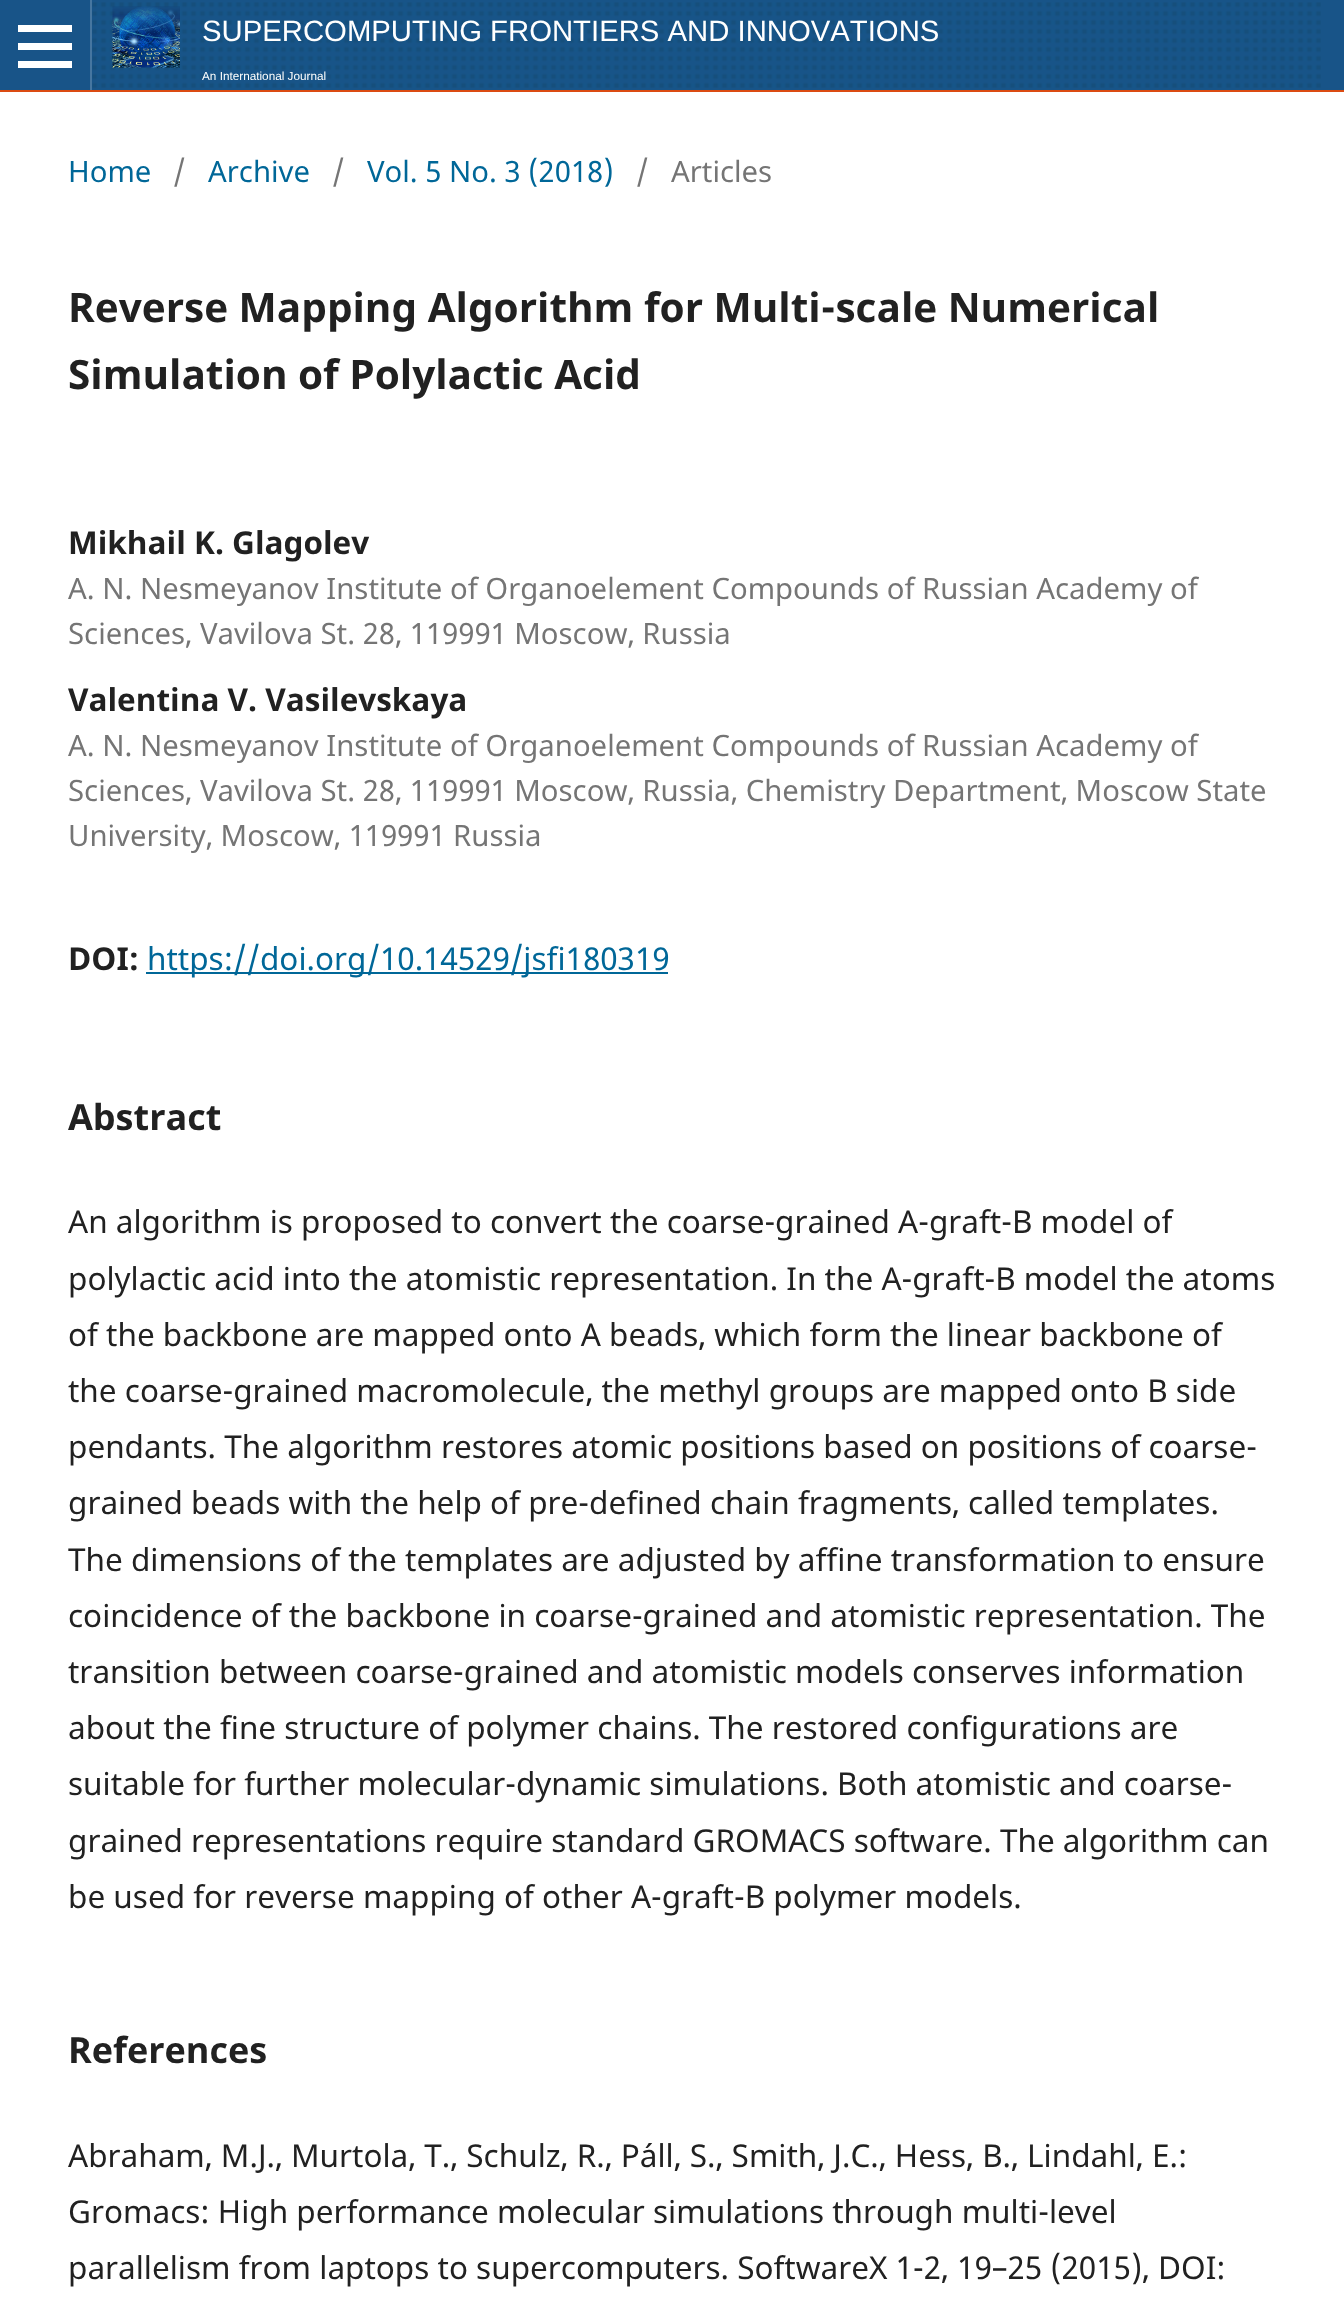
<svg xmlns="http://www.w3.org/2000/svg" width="1344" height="2322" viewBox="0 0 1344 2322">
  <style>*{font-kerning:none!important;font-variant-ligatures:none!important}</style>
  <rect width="100%" height="100%" fill="#fff"/>
  <path d="M0 0h1344v90H0z" fill="#185488"/>
  <path d="M0 90h1344v2H0z" fill="#db4b12"/>
  <path d="M90 0h2v90H90z" fill="#4676a0"/>
  <path d="M18 61h54v7H18z" fill="#fff"/>
  <path d="M18 25h54v7H18z" fill="#fff"/>
  <path d="M18 43h54v7H18z" fill="#fff"/>
  <image x="92" y="2" width="1229" height="86" href="img/1.png"/>
  <image x="112" y="6" width="68" height="62" href="img/2.png"/>
  <path d="M146 972h522v2H146z" fill="#006798"/>
  <text x="202" y="41" font-family="Liberation Sans" font-size="29.3" fill="#fff">SUPERCOMPUTING FRONTIERS AND INNOVATIONS</text>
  <text x="202" y="80" font-family="Liberation Sans" font-size="11.75" fill="#fff">An International Journal</text>
  <text x="68" y="182" font-family="Noto Sans" font-size="29.3" fill="#006798">Home</text>
  <text x="173" y="182" font-family="Noto Sans" font-size="29.3" fill="#757575">/</text>
  <text x="208" y="182" font-family="Noto Sans" font-size="29.3" fill="#006798">Archive</text>
  <text x="332" y="182" font-family="Noto Sans" font-size="29.3" fill="#757575">/</text>
  <text x="367" y="182" font-family="Noto Sans" font-size="29.3" fill="#006798">Vol. 5 No. 3 (2018)</text>
  <g font-family="Noto Sans" font-size="29.3" fill="#757575">
    <text x="636" y="182">/</text>
    <text x="671" y="182">Articles</text>
  </g>
  <g font-family="Noto Sans" font-size="40.5" font-weight="bold" fill="#212121">
    <text x="68" y="322">Reverse Mapping Algorithm for Multi-scale Numerical</text>
    <text x="68" y="389">Simulation of Polylactic Acid</text>
  </g>
  <text x="68" y="554" font-family="Noto Sans" font-size="31.5" font-weight="bold" fill="#212121">Mikhail K. Glagolev</text>
  <g font-family="Noto Sans" font-size="29.3" fill="#757575">
    <text x="68" y="599">A. N. Nesmeyanov Institute of Organoelement Compounds of Russian Academy of</text>
    <text x="68" y="644">Sciences, Vavilova St. 28, 119991 Moscow, Russia</text>
  </g>
  <text x="68" y="711" font-family="Noto Sans" font-size="31.5" font-weight="bold" fill="#212121">Valentina V. Vasilevskaya</text>
  <g font-family="Noto Sans" font-size="29.3" fill="#757575">
    <text x="68" y="756">A. N. Nesmeyanov Institute of Organoelement Compounds of Russian Academy of</text>
    <text x="68" y="801">Sciences, Vavilova St. 28, 119991 Moscow, Russia, Chemistry Department, Moscow State</text>
    <text x="68" y="846">University, Moscow, 119991 Russia</text>
  </g>
  <text x="68" y="970" font-family="Noto Sans" font-size="31.5" font-weight="bold" fill="#212121">DOI:</text>
  <text x="147" y="970" font-family="Noto Sans" font-size="31.5" fill="#006798">https://doi.org/10.14529/jsfi180319</text>
  <text x="68" y="1130" font-family="Noto Sans" font-size="36" font-weight="bold" fill="#212121">Abstract</text>
  <g font-family="Noto Sans" font-size="31.5" fill="#212121">
    <text x="68" y="1233">An algorithm is proposed to convert the coarse-grained A-graft-B model of</text>
    <text x="68" y="1290">polylactic acid into the atomistic representation. In the A-graft-B model the atoms</text>
    <text x="68" y="1346">of the backbone are mapped onto A beads, which form the linear backbone of</text>
    <text x="68" y="1402">the coarse-grained macromolecule, the methyl groups are mapped onto B side</text>
    <text x="68" y="1458">pendants. The algorithm restores atomic positions based on positions of coarse-</text>
    <text x="68" y="1514">grained beads with the help of pre-defined chain fragments, called templates.</text>
    <text x="68" y="1571">The dimensions of the templates are adjusted by affine transformation to ensure</text>
    <text x="68" y="1627">coincidence of the backbone in coarse-grained and atomistic representation. The</text>
    <text x="68" y="1683">transition between coarse-grained and atomistic models conserves information</text>
    <text x="68" y="1739">about the fine structure of polymer chains. The restored configurations are</text>
    <text x="68" y="1795">suitable for further molecular-dynamic simulations. Both atomistic and coarse-</text>
    <text x="68" y="1852">grained representations require standard GROMACS software. The algorithm can</text>
    <text x="68" y="1908">be used for reverse mapping of other A-graft-B polymer models.</text>
  </g>
  <text x="68" y="2063" font-family="Noto Sans" font-size="36" font-weight="bold" fill="#212121">References</text>
  <g font-family="Noto Sans" font-size="31.5" fill="#212121">
    <text x="68" y="2167">Abraham, M.J., Murtola, T., Schulz, R., P´all, S., Smith, J.C., Hess, B., Lindahl, E.:</text>
    <text x="68" y="2223">Gromacs: High performance molecular simulations through multi-level</text>
    <text x="68" y="2279">parallelism from laptops to supercomputers. SoftwareX 1-2, 19–25 (2015), DOI:</text>
  </g>
</svg>
